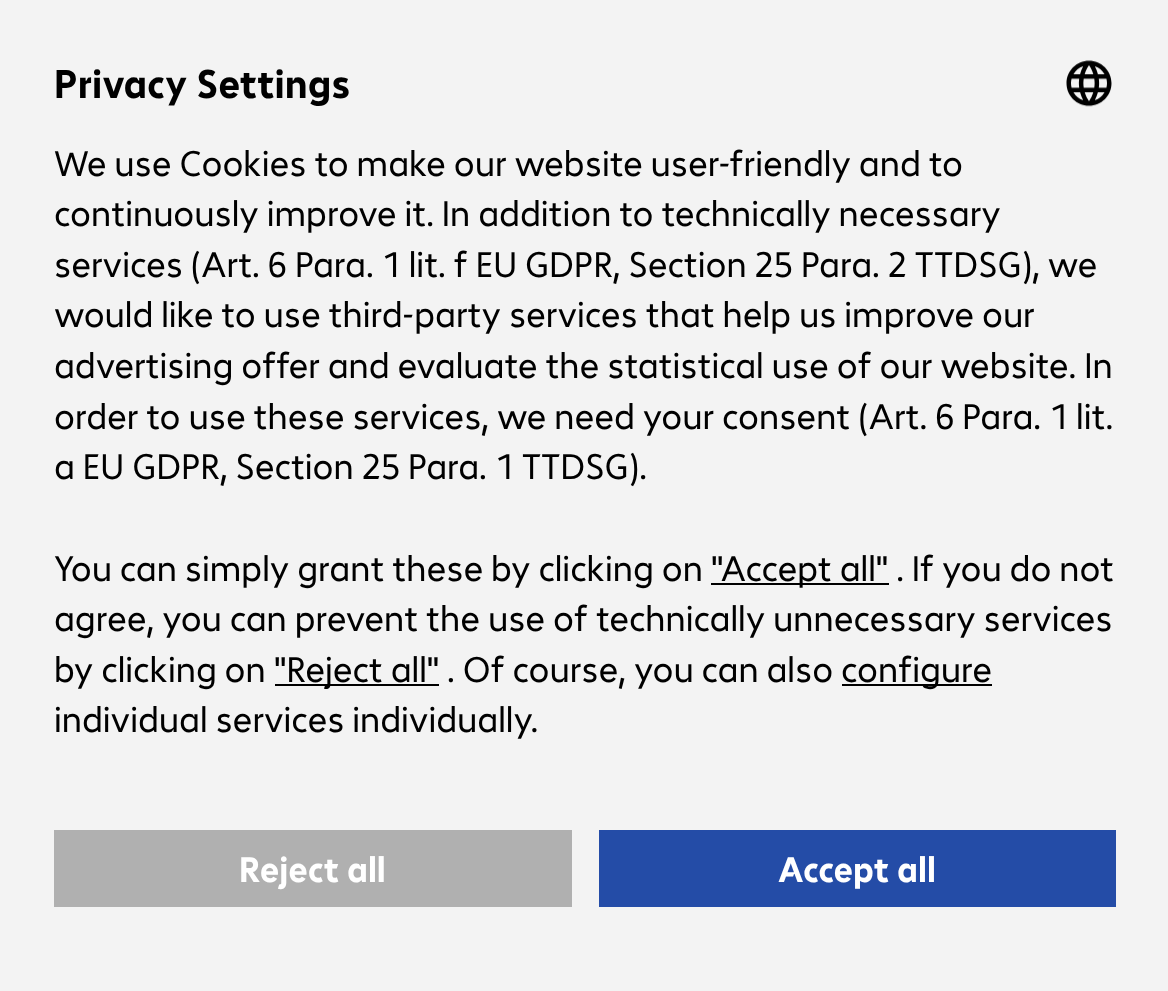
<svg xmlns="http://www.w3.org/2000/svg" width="1168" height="991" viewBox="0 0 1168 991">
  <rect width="100%" height="100%" fill="#f3f3f3"/>
  <image x="1066" y="60" width="46" height="47" href="img/1.png"/>
  <path d="M711 583h178v2H711z" fill="#000"/>
  <path d="M275 684h164v2H275z" fill="#000"/>
  <path d="M842 684h150v2H842z" fill="#000"/>
  <path d="M54 830h518v77H54z" fill="#b0b0b0"/>
  <path d="M599 830h517v77H599z" fill="#244ca7"/>
  <text x="54" y="98" font-family="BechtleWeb" font-size="40.5" font-weight="bold" fill="#000">Privacy Settings</text>
  <g font-family="BechtleWeb" font-size="36" fill="#000">
    <text x="54" y="176">We use Cookies to make our website user-friendly and to</text>
    <text x="54" y="226">continuously improve it. In addition to technically necessary</text>
    <text x="54" y="277">services (Art. 6 Para. 1 lit. f EU GDPR, Section 25 Para. 2 TTDSG), we</text>
    <text x="54" y="327">would like to use third-party services that help us improve our</text>
    <text x="54" y="378">advertising offer and evaluate the statistical use of our website. In</text>
    <text x="54" y="429">order to use these services, we need your consent (Art. 6 Para. 1 lit.</text>
    <text x="54" y="479">a EU GDPR, Section 25 Para. 1 TTDSG).</text>
    <text x="54" y="581">You can simply grant these by clicking on</text>
    <text x="711" y="581">"Accept all" . If you do not</text>
    <text x="54" y="631">agree, you can prevent the use of technically unnecessary services</text>
    <text x="54" y="682">by clicking on</text>
    <text x="274" y="682">"Reject all" . Of course, you can also</text>
    <text x="841" y="682">configure</text>
    <text x="54" y="732">individual services individually.</text>
  </g>
  <g font-family="BechtleWeb" font-size="36" font-weight="bold" fill="#fff">
    <text x="239" y="882">Reject all</text>
    <text x="778" y="882">Accept all</text>
  </g>
</svg>
